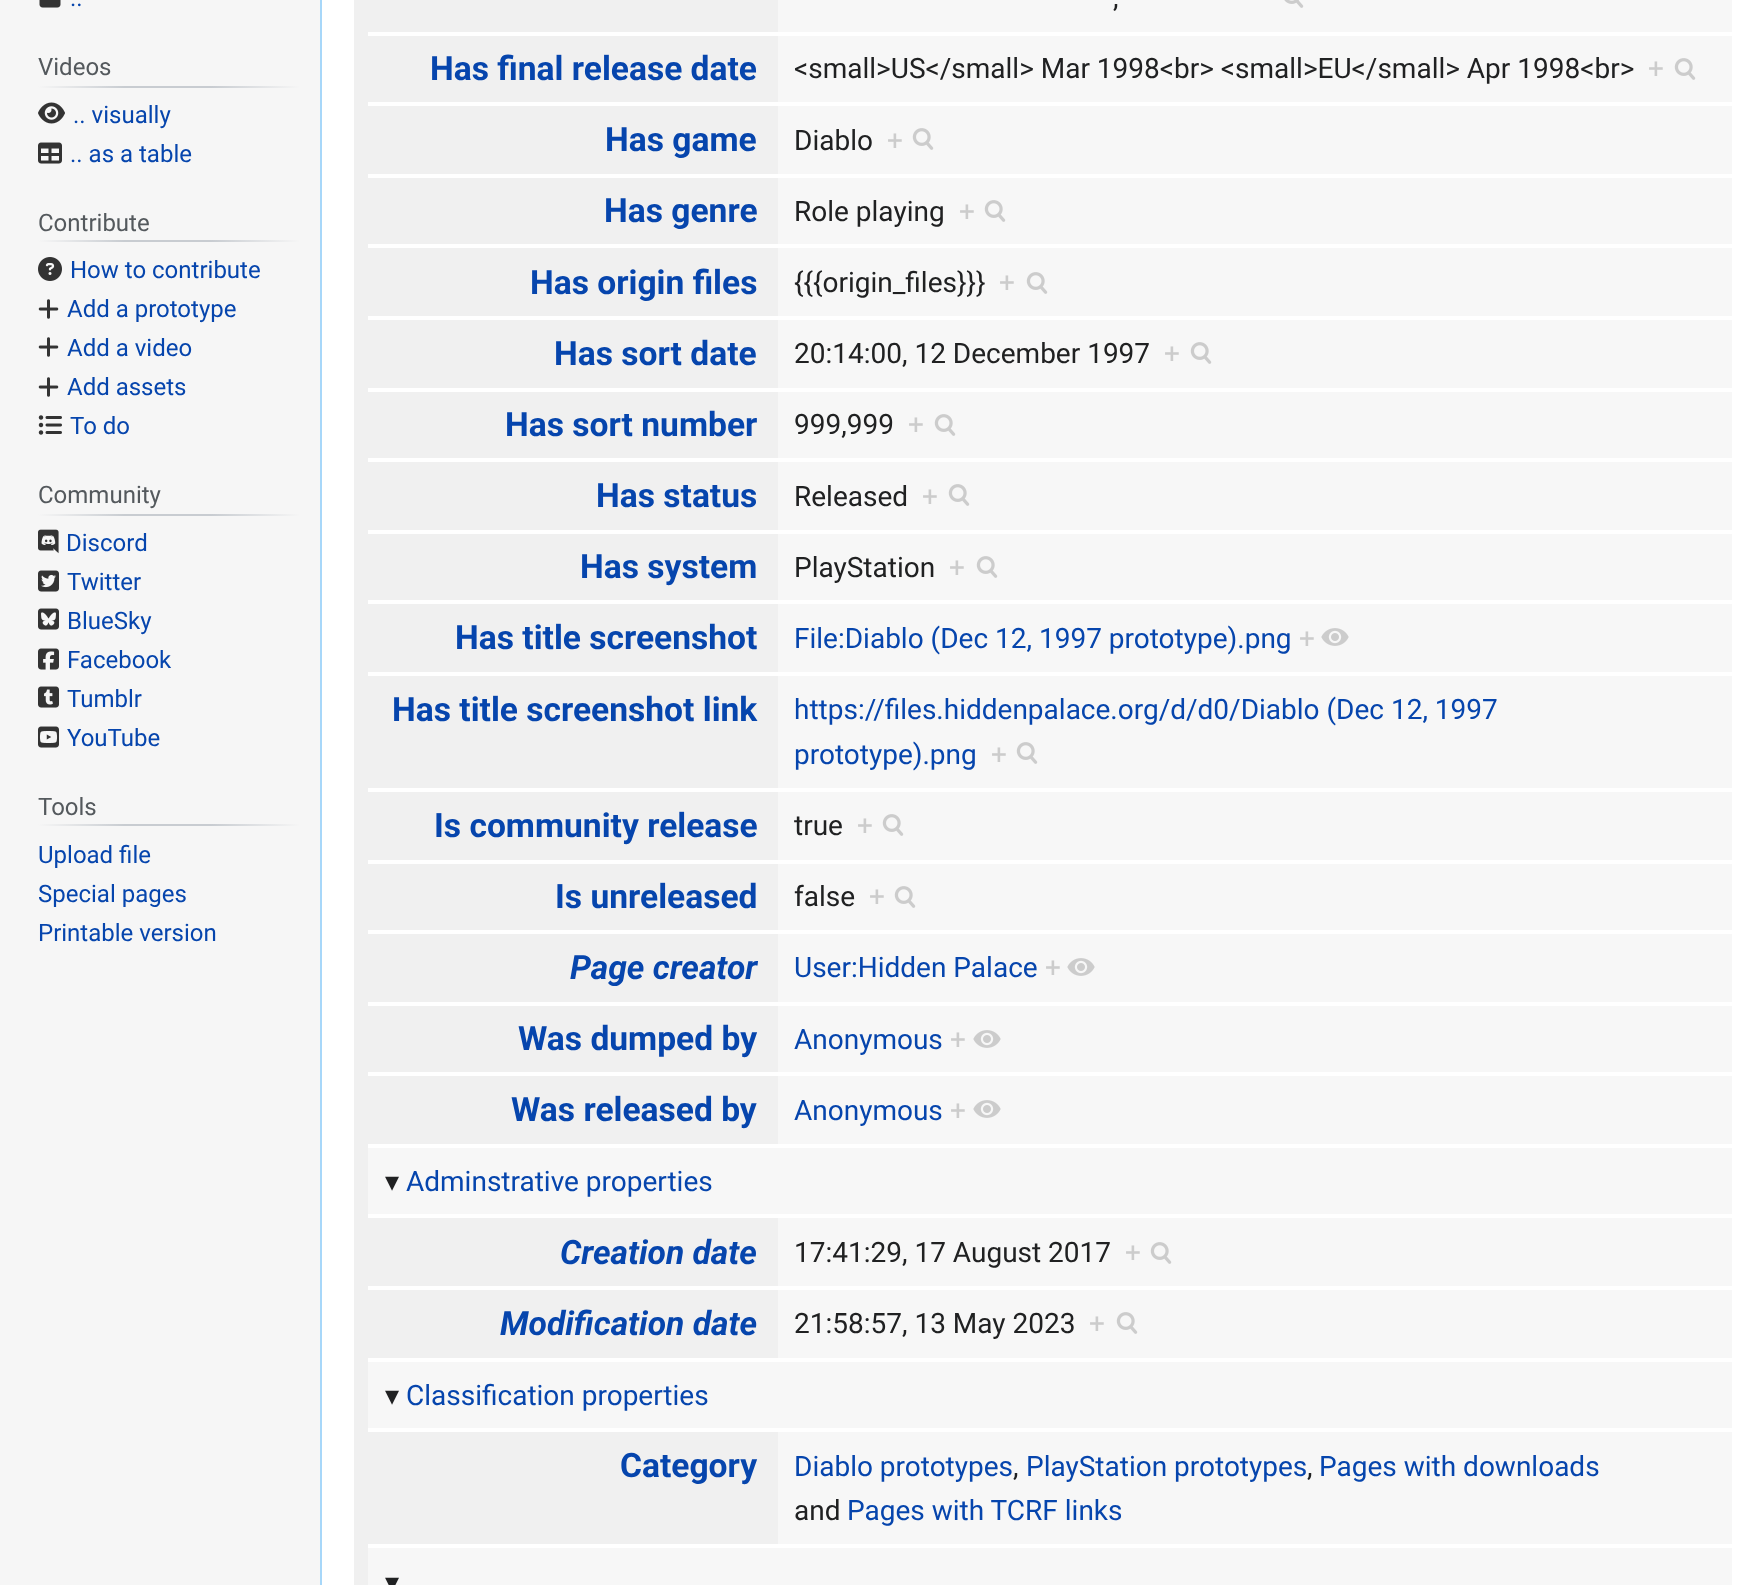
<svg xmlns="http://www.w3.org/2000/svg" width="1764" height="1585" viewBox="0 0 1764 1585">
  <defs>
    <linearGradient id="g1" gradientUnits="userSpaceOnUse" x1="38" y1="87" x2="300" y2="87"><stop offset="0" stop-color="#f6f6f6"/><stop offset="0.33" stop-color="#c8ccd1"/><stop offset="0.66" stop-color="#c8ccd1"/><stop offset="1" stop-color="#f6f6f6"/></linearGradient>
    <linearGradient id="g2" gradientUnits="userSpaceOnUse" x1="38" y1="241" x2="300" y2="241"><stop offset="0" stop-color="#f6f6f6"/><stop offset="0.33" stop-color="#c8ccd1"/><stop offset="0.66" stop-color="#c8ccd1"/><stop offset="1" stop-color="#f6f6f6"/></linearGradient>
    <linearGradient id="g3" gradientUnits="userSpaceOnUse" x1="38" y1="515" x2="300" y2="515"><stop offset="0" stop-color="#f6f6f6"/><stop offset="0.33" stop-color="#c8ccd1"/><stop offset="0.66" stop-color="#c8ccd1"/><stop offset="1" stop-color="#f6f6f6"/></linearGradient>
    <linearGradient id="g4" gradientUnits="userSpaceOnUse" x1="38" y1="825" x2="300" y2="825"><stop offset="0" stop-color="#f6f6f6"/><stop offset="0.33" stop-color="#c8ccd1"/><stop offset="0.66" stop-color="#c8ccd1"/><stop offset="1" stop-color="#f6f6f6"/></linearGradient>
  </defs>
  <rect width="100%" height="100%" fill="#f6f6f6"/>
  <image x="39" y="0" width="22" height="8" href="img/1.png"/>
  <path d="M38 86h262v2H38z" fill="url(#g1)"/>
  <image x="38" y="102" width="27" height="22" href="img/2.png"/>
  <image x="38" y="142" width="24" height="22" href="img/3.png"/>
  <path d="M38 240h262v2H38z" fill="url(#g2)"/>
  <image x="38" y="257" width="24" height="24" href="img/4.png"/>
  <image x="38" y="299" width="21" height="20" href="img/5.png"/>
  <image x="38" y="337" width="21" height="20" href="img/5.png"/>
  <image x="38" y="377" width="21" height="20" href="img/5.png"/>
  <image x="38" y="415" width="24" height="20" href="img/6.png"/>
  <path d="M38 514h262v2H38z" fill="url(#g3)"/>
  <image x="38" y="529" width="21" height="25" href="img/7.png"/>
  <image x="38" y="570" width="21" height="22" href="img/8.png"/>
  <image x="38" y="608" width="21" height="22" href="img/9.png"/>
  <image x="38" y="648" width="21" height="22" href="img/10.png"/>
  <image x="38" y="686" width="21" height="22" href="img/11.png"/>
  <image x="38" y="726" width="21" height="22" href="img/12.png"/>
  <path d="M38 824h262v2H38z" fill="url(#g4)"/>
  <path d="M322 0h1442v1585H322z" fill="#fff"/>
  <path d="M320 0h2v1585H320z" fill="#a7d7f9"/>
  <path d="M354 0h14v1585H354z" fill="#f0f0f0"/>
  <path d="M368 0h410v32H368z" fill="#f0f0f0"/>
  <path d="M778 0h954v32H778z" fill="#f7f7f7"/>
  <image x="1284" y="0" width="20" height="8" href="img/13.png"/>
  <path d="M368 36h410v66H368z" fill="#f0f0f0"/>
  <path d="M778 36h954v66H778z" fill="#f7f7f7"/>
  <image x="1674" y="58" width="22" height="22" href="img/14.png"/>
  <path d="M368 106h410v68H368z" fill="#f0f0f0"/>
  <path d="M778 106h954v68H778z" fill="#f7f7f7"/>
  <image x="912" y="128" width="22" height="22" href="img/14.png"/>
  <path d="M368 178h410v66H368z" fill="#f0f0f0"/>
  <path d="M778 178h954v66H778z" fill="#f7f7f7"/>
  <image x="984" y="200" width="22" height="22" href="img/14.png"/>
  <path d="M368 248h410v68H368z" fill="#f0f0f0"/>
  <path d="M778 248h954v68H778z" fill="#f7f7f7"/>
  <image x="1026" y="272" width="22" height="22" href="img/14.png"/>
  <path d="M368 320h410v68H368z" fill="#f0f0f0"/>
  <path d="M778 320h954v68H778z" fill="#f7f7f7"/>
  <image x="1190" y="342" width="22" height="22" href="img/14.png"/>
  <path d="M368 392h410v66H368z" fill="#f0f0f0"/>
  <path d="M778 392h954v66H778z" fill="#f7f7f7"/>
  <image x="934" y="414" width="22" height="22" href="img/14.png"/>
  <path d="M368 462h410v68H368z" fill="#f0f0f0"/>
  <path d="M778 462h954v68H778z" fill="#f7f7f7"/>
  <image x="948" y="484" width="22" height="22" href="img/14.png"/>
  <path d="M368 534h410v66H368z" fill="#f0f0f0"/>
  <path d="M778 534h954v66H778z" fill="#f7f7f7"/>
  <image x="976" y="556" width="22" height="22" href="img/14.png"/>
  <path d="M368 604h410v68H368z" fill="#f0f0f0"/>
  <path d="M778 604h954v68H778z" fill="#f7f7f7"/>
  <image x="1321" y="628" width="28" height="18" href="img/15.png"/>
  <path d="M368 676h410v112H368z" fill="#f0f0f0"/>
  <path d="M778 676h954v112H778z" fill="#f7f7f7"/>
  <image x="1016" y="742" width="22" height="22" href="img/14.png"/>
  <path d="M368 792h410v68H368z" fill="#f0f0f0"/>
  <path d="M778 792h954v68H778z" fill="#f7f7f7"/>
  <image x="882" y="814" width="22" height="22" href="img/14.png"/>
  <path d="M368 864h410v66H368z" fill="#f0f0f0"/>
  <path d="M778 864h954v66H778z" fill="#f7f7f7"/>
  <image x="894" y="886" width="22" height="22" href="img/14.png"/>
  <path d="M368 934h410v68H368z" fill="#f0f0f0"/>
  <path d="M778 934h954v68H778z" fill="#f7f7f7"/>
  <image x="1067" y="958" width="28" height="18" href="img/15.png"/>
  <path d="M368 1006h410v66H368z" fill="#f0f0f0"/>
  <path d="M778 1006h954v66H778z" fill="#f7f7f7"/>
  <image x="973" y="1030" width="28" height="18" href="img/15.png"/>
  <path d="M368 1076h410v68H368z" fill="#f0f0f0"/>
  <path d="M778 1076h954v68H778z" fill="#f7f7f7"/>
  <image x="973" y="1100" width="28" height="18" href="img/15.png"/>
  <path d="M368 1148h1364v66H368z" fill="#f7f7f7"/>
  <path d="M368 1218h410v68H368z" fill="#f0f0f0"/>
  <path d="M778 1218h954v68H778z" fill="#f7f7f7"/>
  <image x="1150" y="1242" width="22" height="22" href="img/14.png"/>
  <path d="M368 1290h410v68H368z" fill="#f0f0f0"/>
  <path d="M778 1290h954v68H778z" fill="#f7f7f7"/>
  <image x="1116" y="1312" width="22" height="22" href="img/14.png"/>
  <path d="M368 1362h1364v66H368z" fill="#f7f7f7"/>
  <path d="M368 1432h410v112H368z" fill="#f0f0f0"/>
  <path d="M778 1432h954v112H778z" fill="#f7f7f7"/>
  <path d="M368 1548h1364v37H368z" fill="#f7f7f7"/>
  <text x="70" y="6" font-family="Roboto" font-size="24" fill="#0645ad">..</text>
  <text x="38" y="75" font-family="Roboto" font-size="24" fill="#54595d">Videos</text>
  <g font-family="Roboto" font-size="24" fill="#0645ad">
    <text x="73" y="123">.. visually</text>
    <text x="70" y="162">.. as a table</text>
  </g>
  <text x="38" y="231" font-family="Roboto" font-size="24" fill="#54595d">Contribute</text>
  <g font-family="Roboto" font-size="24" fill="#0645ad">
    <text x="70" y="278">How to contribute</text>
    <text x="67" y="317">Add a prototype</text>
    <text x="67" y="356">Add a video</text>
    <text x="67" y="395">Add assets</text>
    <text x="70" y="434">To do</text>
  </g>
  <text x="38" y="503" font-family="Roboto" font-size="24" fill="#54595d">Community</text>
  <g font-family="Roboto" font-size="24" fill="#0645ad">
    <text x="66" y="551">Discord</text>
    <text x="67" y="590">Twitter</text>
    <text x="67" y="629">BlueSky</text>
    <text x="67" y="668">Facebook</text>
    <text x="67" y="707">Tumblr</text>
    <text x="67" y="746">YouTube</text>
  </g>
  <text x="38" y="815" font-family="Roboto" font-size="24" fill="#54595d">Tools</text>
  <g font-family="Roboto" font-size="24" fill="#0645ad">
    <text x="38" y="863">Upload file</text>
    <text x="38" y="902">Special pages</text>
    <text x="38" y="941">Printable version</text>
  </g>
  <text x="1113" y="7" font-family="Roboto" font-size="28" fill="#202122">,</text>
  <text x="430" y="80" font-family="Roboto" font-size="33.6" font-weight="bold" fill="#0645ad">Has final release date</text>
  <text x="794" y="78" font-family="Roboto" font-size="28" fill="#202122">&lt;small&gt;US&lt;/small&gt; Mar 1998&lt;br&gt; &lt;small&gt;EU&lt;/small&gt; Apr 1998&lt;br&gt;</text>
  <text x="1648" y="78" font-family="Roboto" font-size="28" fill="#ccc">+</text>
  <text x="605" y="151" font-family="Roboto" font-size="33.6" font-weight="bold" fill="#0645ad">Has game</text>
  <text x="794" y="150" font-family="Roboto" font-size="28" fill="#202122">Diablo</text>
  <text x="887" y="150" font-family="Roboto" font-size="28" fill="#ccc">+</text>
  <text x="604" y="222" font-family="Roboto" font-size="33.6" font-weight="bold" fill="#0645ad">Has genre</text>
  <text x="794" y="221" font-family="Roboto" font-size="28" fill="#202122">Role playing</text>
  <text x="959" y="221" font-family="Roboto" font-size="28" fill="#ccc">+</text>
  <text x="530" y="294" font-family="Roboto" font-size="33.6" font-weight="bold" fill="#0645ad">Has origin files</text>
  <text x="794" y="292" font-family="Roboto" font-size="28" fill="#202122">{{{origin_files}}}</text>
  <text x="999" y="292" font-family="Roboto" font-size="28" fill="#ccc">+</text>
  <text x="554" y="365" font-family="Roboto" font-size="33.6" font-weight="bold" fill="#0645ad">Has sort date</text>
  <text x="794" y="363" font-family="Roboto" font-size="28" fill="#202122">20:14:00, 12 December 1997</text>
  <text x="1164" y="363" font-family="Roboto" font-size="28" fill="#ccc">+</text>
  <text x="505" y="436" font-family="Roboto" font-size="33.6" font-weight="bold" fill="#0645ad">Has sort number</text>
  <text x="794" y="434" font-family="Roboto" font-size="28" fill="#202122">999,999</text>
  <text x="908" y="434" font-family="Roboto" font-size="28" fill="#ccc">+</text>
  <text x="596" y="507" font-family="Roboto" font-size="33.6" font-weight="bold" fill="#0645ad">Has status</text>
  <text x="794" y="506" font-family="Roboto" font-size="28" fill="#202122">Released</text>
  <text x="922" y="506" font-family="Roboto" font-size="28" fill="#ccc">+</text>
  <text x="580" y="578" font-family="Roboto" font-size="33.6" font-weight="bold" fill="#0645ad">Has system</text>
  <text x="794" y="577" font-family="Roboto" font-size="28" fill="#202122">PlayStation</text>
  <text x="949" y="577" font-family="Roboto" font-size="28" fill="#ccc">+</text>
  <text x="455" y="649" font-family="Roboto" font-size="33.6" font-weight="bold" fill="#0645ad">Has title screenshot</text>
  <text x="794" y="648" font-family="Roboto" font-size="28" fill="#0645ad">File:Diablo (Dec 12, 1997 prototype).png</text>
  <text x="1299" y="648" font-family="Roboto" font-size="28" fill="#ccc">+</text>
  <text x="392" y="721" font-family="Roboto" font-size="33.6" font-weight="bold" fill="#0645ad">Has title screenshot link</text>
  <g font-family="Roboto" font-size="28" fill="#0645ad">
    <text x="794" y="719">https://files.hiddenpalace.org/d/d0/Diablo (Dec 12, 1997</text>
    <text x="794" y="764">prototype).png</text>
  </g>
  <text x="991" y="764" font-family="Roboto" font-size="28" fill="#ccc">+</text>
  <text x="434" y="837" font-family="Roboto" font-size="33.6" font-weight="bold" fill="#0645ad">Is community release</text>
  <text x="794" y="835" font-family="Roboto" font-size="28" fill="#202122">true</text>
  <text x="857" y="835" font-family="Roboto" font-size="28" fill="#ccc">+</text>
  <text x="555" y="908" font-family="Roboto" font-size="33.6" font-weight="bold" fill="#0645ad">Is unreleased</text>
  <text x="794" y="906" font-family="Roboto" font-size="28" fill="#202122">false</text>
  <text x="869" y="906" font-family="Roboto" font-size="28" fill="#ccc">+</text>
  <text x="570" y="979" font-family="Roboto" font-size="33.6" font-weight="bold" font-style="italic" fill="#0645ad">Page creator</text>
  <text x="794" y="977" font-family="Roboto" font-size="28" fill="#0645ad">User:Hidden Palace</text>
  <text x="1045" y="977" font-family="Roboto" font-size="28" fill="#ccc">+</text>
  <text x="518" y="1050" font-family="Roboto" font-size="33.6" font-weight="bold" fill="#0645ad">Was dumped by</text>
  <text x="794" y="1049" font-family="Roboto" font-size="28" fill="#0645ad">Anonymous</text>
  <text x="950" y="1049" font-family="Roboto" font-size="28" fill="#ccc">+</text>
  <text x="511" y="1121" font-family="Roboto" font-size="33.6" font-weight="bold" fill="#0645ad">Was released by</text>
  <text x="794" y="1120" font-family="Roboto" font-size="28" fill="#0645ad">Anonymous</text>
  <text x="950" y="1120" font-family="Roboto" font-size="28" fill="#ccc">+</text>
  <text x="385" y="1191" font-family="DejaVu Sans" font-size="28" fill="#202122">▾</text>
  <text x="406" y="1191" font-family="Roboto" font-size="28" fill="#0645ad">Adminstrative properties</text>
  <text x="560" y="1264" font-family="Roboto" font-size="33.6" font-weight="bold" font-style="italic" fill="#0645ad">Creation date</text>
  <text x="794" y="1262" font-family="Roboto" font-size="28" fill="#202122">17:41:29, 17 August 2017</text>
  <text x="1125" y="1262" font-family="Roboto" font-size="28" fill="#ccc">+</text>
  <text x="500" y="1335" font-family="Roboto" font-size="33.6" font-weight="bold" font-style="italic" fill="#0645ad">Modification date</text>
  <text x="794" y="1333" font-family="Roboto" font-size="28" fill="#202122">21:58:57, 13 May 2023</text>
  <text x="1089" y="1333" font-family="Roboto" font-size="28" fill="#ccc">+</text>
  <text x="385" y="1405" font-family="DejaVu Sans" font-size="28" fill="#202122">▾</text>
  <text x="406" y="1405" font-family="Roboto" font-size="28" fill="#0645ad">Classification properties</text>
  <text x="620" y="1477" font-family="Roboto" font-size="33.6" font-weight="bold" fill="#0645ad">Category</text>
  <text x="794" y="1476" font-family="Roboto" font-size="28" fill="#0645ad">Diablo prototypes</text>
  <text x="1013" y="1476" font-family="Roboto" font-size="28" fill="#202122">,</text>
  <text x="1026" y="1476" font-family="Roboto" font-size="28" fill="#0645ad">PlayStation prototypes</text>
  <text x="1307" y="1476" font-family="Roboto" font-size="28" fill="#202122">,</text>
  <text x="1319" y="1476" font-family="Roboto" font-size="28" fill="#0645ad">Pages with downloads</text>
  <text x="794" y="1520" font-family="Roboto" font-size="28" fill="#202122">and</text>
  <text x="847" y="1520" font-family="Roboto" font-size="28" fill="#0645ad">Pages with TCRF links</text>
  <text x="385" y="1592" font-family="DejaVu Sans" font-size="28" fill="#202122">▾</text>
</svg>
